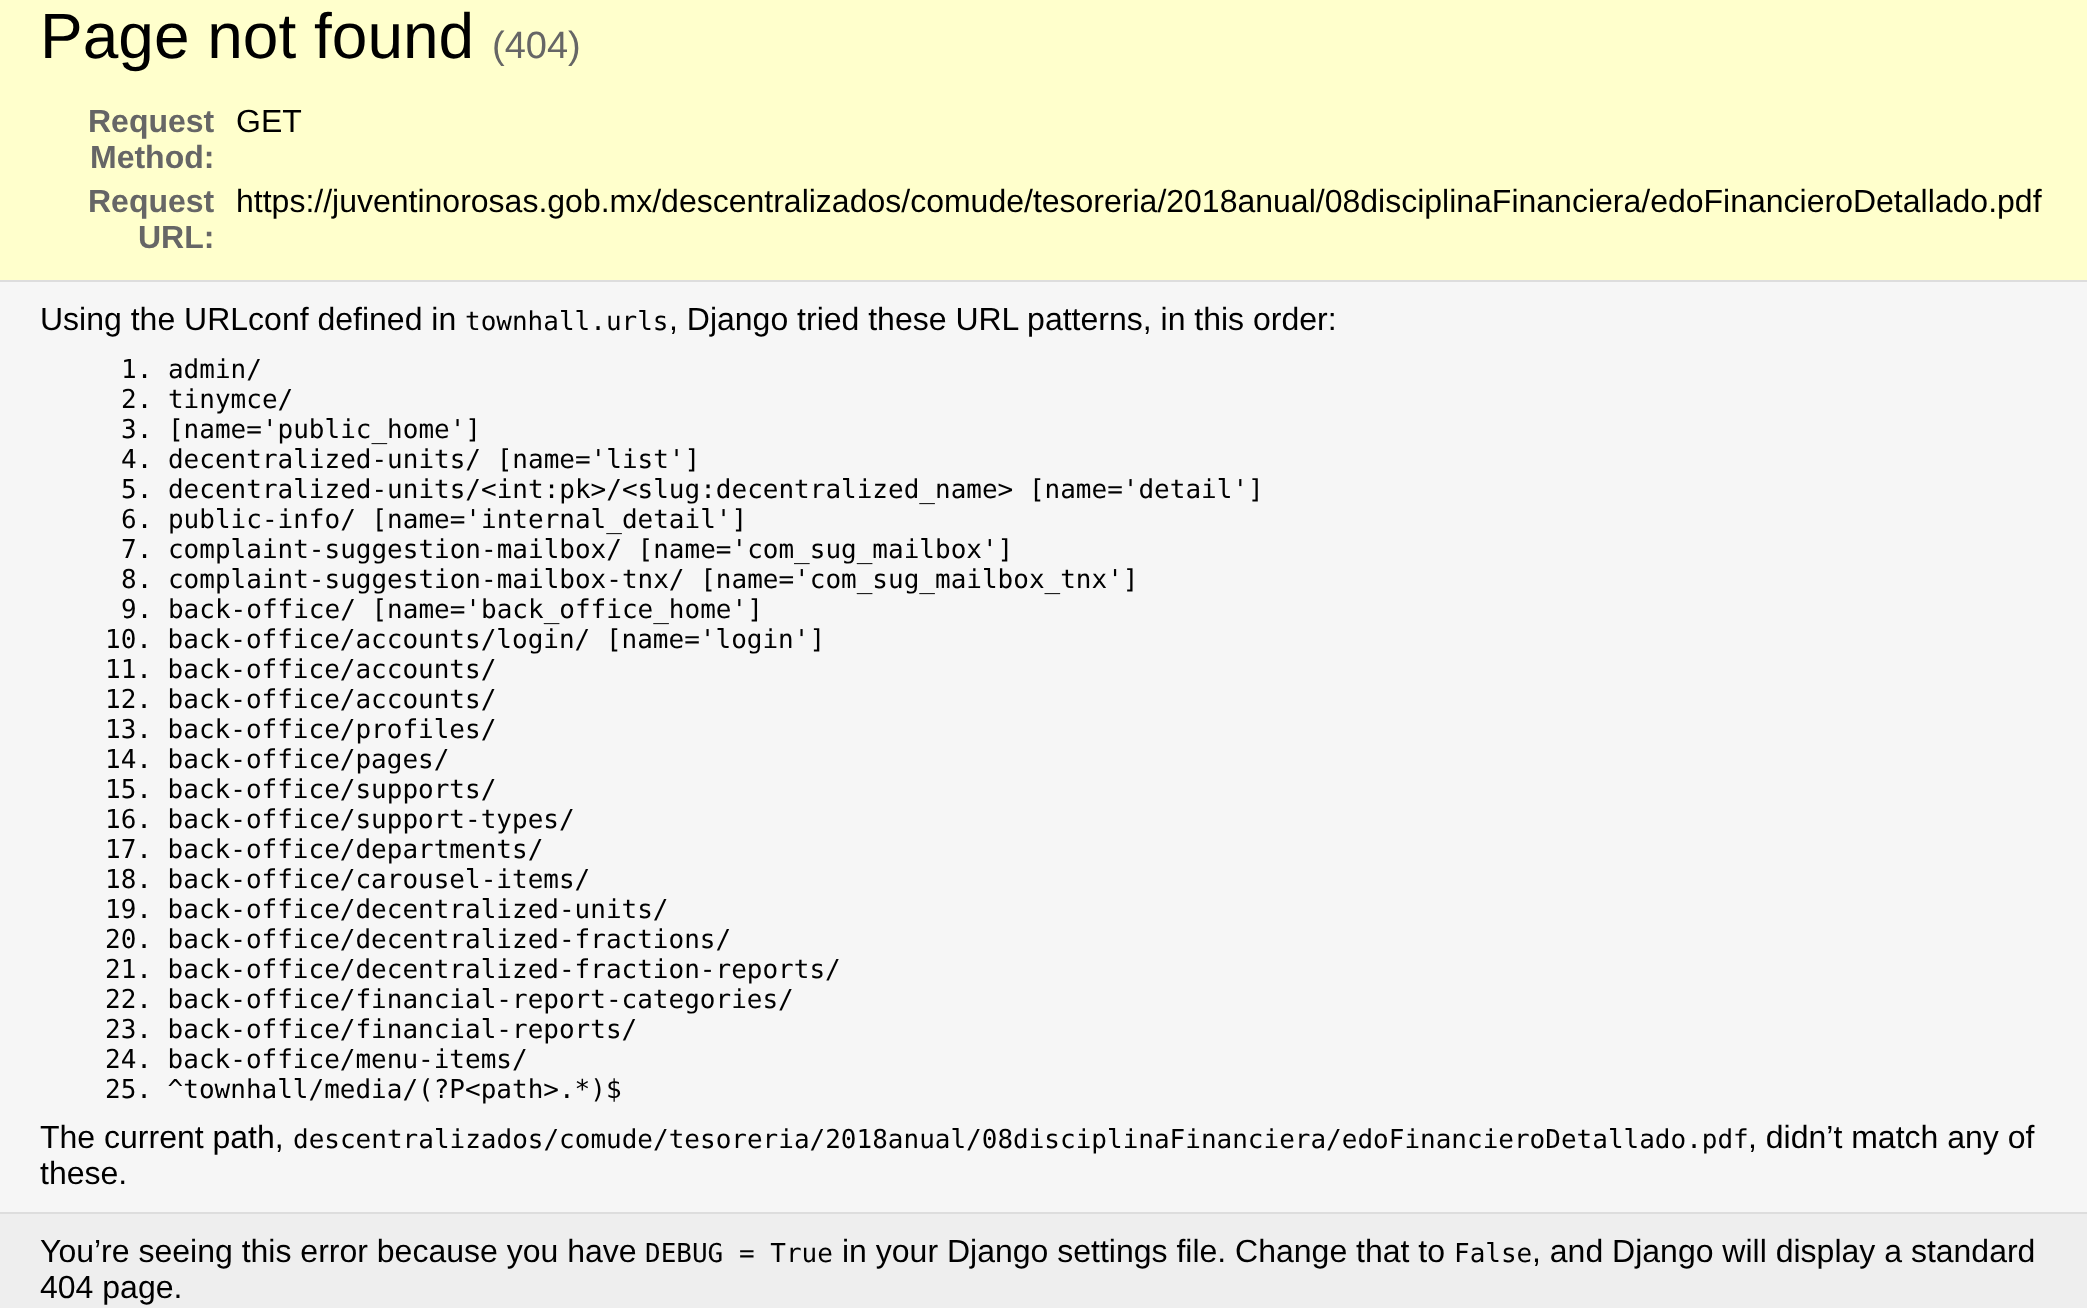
<svg xmlns="http://www.w3.org/2000/svg" width="2087" height="1308" viewBox="0 0 2087 1308">
  <rect width="100%" height="100%" fill="#eee"/>
  <path d="M0 0h2087v280H0z" fill="#ffc"/>
  <path d="M0 280h2087v2H0z" fill="#ddd"/>
  <path d="M0 282h2087v930H0z" fill="#f6f6f6"/>
  <path d="M0 1212h2087v2H0z" fill="#ddd"/>
  <text x="40" y="58" font-family="Liberation Sans" font-size="64" fill="#000">Page not found</text>
  <text x="492" y="58" font-family="Liberation Sans" font-size="38" fill="#666">(404)</text>
  <g font-family="Liberation Sans" font-size="32" font-weight="bold" fill="#666">
    <text x="88" y="132">Request</text>
    <text x="90" y="168">Method:</text>
  </g>
  <text x="236" y="132" font-family="Liberation Sans" font-size="32" fill="#000">GET</text>
  <g font-family="Liberation Sans" font-size="32" font-weight="bold" fill="#666">
    <text x="88" y="212">Request</text>
    <text x="138" y="248">URL:</text>
  </g>
  <g font-family="Liberation Sans" font-size="32" fill="#000">
    <text x="236" y="212">https://juventinorosas.gob.mx/descentralizados/comude/tesoreria/2018anual/08disciplinaFinanciera/edoFinancieroDetallado.pdf</text>
    <text x="40" y="330">Using the URLconf defined in</text>
  </g>
  <text x="465" y="330" font-family="DejaVu Sans Mono" font-size="26" fill="#000">townhall.urls</text>
  <text x="669" y="330" font-family="Liberation Sans" font-size="32" fill="#000">, Django tried these URL patterns, in this order:</text>
  <g font-family="DejaVu Sans Mono" font-size="26" fill="#000">
    <text x="121" y="378">1. admin/</text>
    <text x="121" y="408">2. tinymce/</text>
    <text x="121" y="438">3. [name='public_home']</text>
    <text x="121" y="468">4. decentralized-units/ [name='list']</text>
    <text x="121" y="498">5. decentralized-units/&lt;int:pk&gt;/&lt;slug:decentralized_name&gt; [name='detail']</text>
    <text x="121" y="528">6. public-info/ [name='internal_detail']</text>
    <text x="121" y="558">7. complaint-suggestion-mailbox/ [name='com_sug_mailbox']</text>
    <text x="121" y="588">8. complaint-suggestion-mailbox-tnx/ [name='com_sug_mailbox_tnx']</text>
    <text x="121" y="618">9. back-office/ [name='back_office_home']</text>
    <text x="105" y="648">10. back-office/accounts/login/ [name='login']</text>
    <text x="105" y="678">11. back-office/accounts/</text>
    <text x="105" y="708">12. back-office/accounts/</text>
    <text x="105" y="738">13. back-office/profiles/</text>
    <text x="105" y="768">14. back-office/pages/</text>
    <text x="105" y="798">15. back-office/supports/</text>
    <text x="105" y="828">16. back-office/support-types/</text>
    <text x="105" y="858">17. back-office/departments/</text>
    <text x="105" y="888">18. back-office/carousel-items/</text>
    <text x="105" y="918">19. back-office/decentralized-units/</text>
    <text x="105" y="948">20. back-office/decentralized-fractions/</text>
    <text x="105" y="978">21. back-office/decentralized-fraction-reports/</text>
    <text x="105" y="1008">22. back-office/financial-report-categories/</text>
    <text x="105" y="1038">23. back-office/financial-reports/</text>
    <text x="105" y="1068">24. back-office/menu-items/</text>
    <text x="105" y="1098">25. ^townhall/media/(?P&lt;path&gt;.*)$</text>
  </g>
  <text x="40" y="1148" font-family="Liberation Sans" font-size="32" fill="#000">The current path,</text>
  <text x="293" y="1148" font-family="DejaVu Sans Mono" font-size="26" fill="#000">descentralizados/comude/tesoreria/2018anual/08disciplinaFinanciera/edoFinancieroDetallado.pdf</text>
  <g font-family="Liberation Sans" font-size="32" fill="#000">
    <text x="1748" y="1148">, didn’t match any of</text>
    <text x="40" y="1184">these.</text>
    <text x="40" y="1262">You’re seeing this error because you have</text>
  </g>
  <text x="645" y="1262" font-family="DejaVu Sans Mono" font-size="26" fill="#000">DEBUG = True</text>
  <text x="842" y="1262" font-family="Liberation Sans" font-size="32" fill="#000">in your Django settings file. Change that to</text>
  <text x="1454" y="1262" font-family="DejaVu Sans Mono" font-size="26" fill="#000">False</text>
  <g font-family="Liberation Sans" font-size="32" fill="#000">
    <text x="1532" y="1262">, and Django will display a standard</text>
    <text x="40" y="1298">404 page.</text>
  </g>
</svg>
